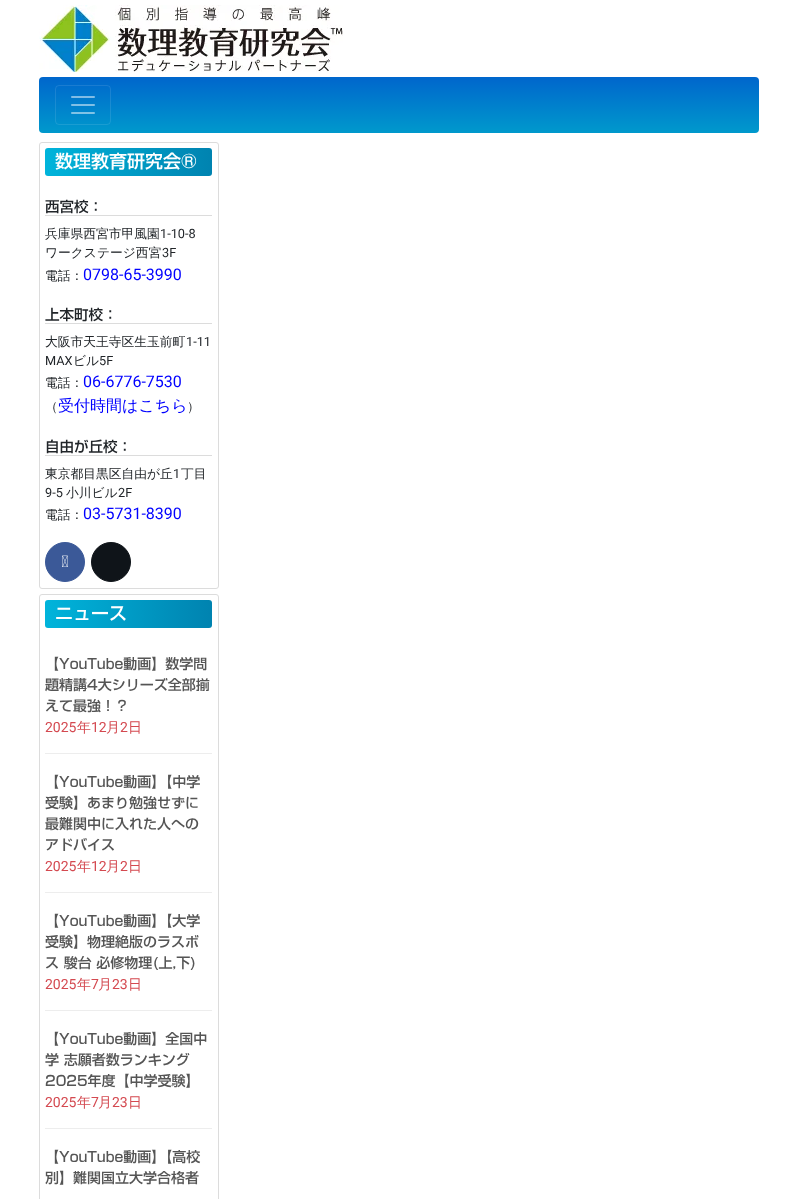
<svg xmlns="http://www.w3.org/2000/svg" width="797" height="1199" viewBox="0 0 797 1199">
  <defs>
    <linearGradient id="g1" gradientUnits="userSpaceOnUse" x1="399" y1="77" x2="399" y2="133"><stop offset="0" stop-color="#06c"/><stop offset="1" stop-color="#09c"/></linearGradient>
    <linearGradient id="g2" gradientUnits="userSpaceOnUse" x1="212" y1="162" x2="45" y2="162"><stop offset="0" stop-color="#0083b0"/><stop offset="1" stop-color="#00b4db"/></linearGradient>
    <linearGradient id="g3" gradientUnits="userSpaceOnUse" x1="212" y1="614" x2="45" y2="614"><stop offset="0" stop-color="#0083b0"/><stop offset="1" stop-color="#00b4db"/></linearGradient>
  </defs>
  <rect width="100%" height="100%" fill="#fff"/>
  <image x="39" y="5" width="304" height="67" href="img/1.png"/>
  <rect x="39" y="77" width="720" height="56" rx="4" fill="url(#g1)"/>
  <rect x="55.5" y="85.5" width="55" height="39" rx="3.5" fill="none" stroke="#ffffff1a"/>
  <image x="71" y="96" width="24" height="18" href="img/2.png"/>
  <rect x="39.5" y="142.5" width="179" height="446" rx="2.5" fill="none" stroke="#dcdcdc"/>
  <rect x="45" y="148" width="167" height="28" rx="3" fill="url(#g2)"/>
  <path d="M45 215h167v1H45z" fill="#dcdcdc"/>
  <path d="M45 323h167v1H45z" fill="#dcdcdc"/>
  <path d="M45 455h167v1H45z" fill="#dcdcdc"/>
  <circle cx="65" cy="562" r="19.5" fill="#3b5998" stroke="#3b5998"/>
  <image x="62" y="555" width="6" height="12" href="img/3.png"/>
  <circle cx="111" cy="562" r="19.5" fill="#0f1419" stroke="#0f1419"/>
  <rect x="39.5" y="594.5" width="179" height="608" rx="2.5" fill="none" stroke="#dcdcdc"/>
  <rect x="45" y="600" width="167" height="28" rx="3" fill="url(#g3)"/>
  <path d="M45 753h167v1H45z" fill="#ededed"/>
  <path d="M45 892h167v1H45z" fill="#ededed"/>
  <path d="M45 1010h167v1H45z" fill="#ededed"/>
  <path d="M45 1128h167v1H45z" fill="#ededed"/>
  <text x="55" y="168" font-family="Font" font-size="18" font-weight="500" fill="#fff">数理教育研究会®</text>
  <text x="45" y="212" font-family="Font" font-size="14.5" font-weight="500" fill="#212529">西宮校：</text>
  <text x="45" y="238" font-family="WenQuanYi Zen Hei" font-size="12.75" font-weight="500" fill="#212529">兵庫県西宮市甲風園</text>
  <text x="160" y="238" font-family="Roboto" font-size="12.75" fill="#212529">1-10-8</text>
  <text x="45" y="257" font-family="WenQuanYi Zen Hei" font-size="12.75" font-weight="500" fill="#212529">ワークステージ西宮</text>
  <text x="162" y="257" font-family="Roboto" font-size="12.75" fill="#212529">3F</text>
  <text x="45" y="280" font-family="WenQuanYi Zen Hei" font-size="12.75" font-weight="500" fill="#212529">電話：</text>
  <text x="83" y="280" font-family="Roboto" font-size="16" fill="#00f">0798-65-3990</text>
  <text x="45" y="320" font-family="Font" font-size="14.5" font-weight="500" fill="#212529">上本町校：</text>
  <text x="45" y="346" font-family="WenQuanYi Zen Hei" font-size="12.75" font-weight="500" fill="#212529">大阪市天王寺区生玉前町</text>
  <g font-family="Roboto" font-size="12.75" fill="#212529">
    <text x="186" y="346">1-11</text>
    <text x="45" y="365">MAX</text>
  </g>
  <text x="73" y="365" font-family="WenQuanYi Zen Hei" font-size="12.75" font-weight="500" fill="#212529">ビル</text>
  <text x="99" y="365" font-family="Roboto" font-size="12.75" fill="#212529">5F</text>
  <text x="45" y="387" font-family="WenQuanYi Zen Hei" font-size="12.75" font-weight="500" fill="#212529">電話：</text>
  <text x="83" y="387" font-family="Roboto" font-size="16" fill="#00f">06-6776-7530</text>
  <text x="45" y="411" font-family="WenQuanYi Zen Hei" font-size="12.75" font-weight="500" fill="#212529">（</text>
  <text x="58" y="411" font-family="WenQuanYi Zen Hei" font-size="16" font-weight="500" fill="#00f">受付時間はこちら</text>
  <text x="187" y="411" font-family="WenQuanYi Zen Hei" font-size="12.75" font-weight="500" fill="#212529">）</text>
  <text x="45" y="452" font-family="Font" font-size="14.5" font-weight="500" fill="#212529">自由が丘校：</text>
  <text x="45" y="478" font-family="WenQuanYi Zen Hei" font-size="12.75" font-weight="500" fill="#212529">東京都目黒区自由が丘</text>
  <text x="173" y="478" font-family="Roboto" font-size="12.75" fill="#212529">1</text>
  <text x="181" y="478" font-family="WenQuanYi Zen Hei" font-size="12.75" font-weight="500" fill="#212529">丁目</text>
  <text x="45" y="497" font-family="Roboto" font-size="12.75" fill="#212529">9-5</text>
  <text x="66" y="497" font-family="WenQuanYi Zen Hei" font-size="12.75" font-weight="500" fill="#212529">小川ビル</text>
  <text x="118" y="497" font-family="Roboto" font-size="12.75" fill="#212529">2F</text>
  <text x="45" y="519" font-family="WenQuanYi Zen Hei" font-size="12.75" font-weight="500" fill="#212529">電話：</text>
  <text x="83" y="519" font-family="Roboto" font-size="16" fill="#00f">03-5731-8390</text>
  <text x="55" y="620" font-family="Font" font-size="18" font-weight="500" fill="#fff">ニュース</text>
  <g font-family="Font" font-size="14" font-weight="500" fill="#555">
    <text x="45" y="669">【YouTube動画】数学問</text>
    <text x="45" y="690">題精講4大シリーズ全部揃</text>
    <text x="45" y="711">えて最強！？</text>
  </g>
  <text x="45" y="732" font-family="Roboto" font-size="14" fill="#d44950">2025</text>
  <text x="77" y="732" font-family="WenQuanYi Zen Hei" font-size="14" font-weight="500" fill="#d44950">年</text>
  <text x="91" y="732" font-family="Roboto" font-size="14" fill="#d44950">12</text>
  <text x="106" y="732" font-family="WenQuanYi Zen Hei" font-size="14" font-weight="500" fill="#d44950">月</text>
  <text x="120" y="732" font-family="Roboto" font-size="14" fill="#d44950">2</text>
  <text x="128" y="732" font-family="WenQuanYi Zen Hei" font-size="14" font-weight="500" fill="#d44950">日</text>
  <g font-family="Font" font-size="14" font-weight="500" fill="#555">
    <text x="45" y="787">【YouTube動画】【中学</text>
    <text x="45" y="808">受験】あまり勉強せずに</text>
    <text x="45" y="829">最難関中に入れた人への</text>
    <text x="45" y="850">アドバイス</text>
  </g>
  <text x="45" y="871" font-family="Roboto" font-size="14" fill="#d44950">2025</text>
  <text x="77" y="871" font-family="WenQuanYi Zen Hei" font-size="14" font-weight="500" fill="#d44950">年</text>
  <text x="91" y="871" font-family="Roboto" font-size="14" fill="#d44950">12</text>
  <text x="106" y="871" font-family="WenQuanYi Zen Hei" font-size="14" font-weight="500" fill="#d44950">月</text>
  <text x="120" y="871" font-family="Roboto" font-size="14" fill="#d44950">2</text>
  <text x="128" y="871" font-family="WenQuanYi Zen Hei" font-size="14" font-weight="500" fill="#d44950">日</text>
  <g font-family="Font" font-size="14" font-weight="500" fill="#555">
    <text x="45" y="926">【YouTube動画】【大学</text>
    <text x="45" y="947">受験】物理絶版のラスボ</text>
    <text x="45" y="968">ス 駿台 必修物理(上,下)</text>
  </g>
  <text x="45" y="989" font-family="Roboto" font-size="14" fill="#d44950">2025</text>
  <text x="77" y="989" font-family="WenQuanYi Zen Hei" font-size="14" font-weight="500" fill="#d44950">年</text>
  <text x="91" y="989" font-family="Roboto" font-size="14" fill="#d44950">7</text>
  <text x="98" y="989" font-family="WenQuanYi Zen Hei" font-size="14" font-weight="500" fill="#d44950">月</text>
  <text x="112" y="989" font-family="Roboto" font-size="14" fill="#d44950">23</text>
  <text x="128" y="989" font-family="WenQuanYi Zen Hei" font-size="14" font-weight="500" fill="#d44950">日</text>
  <g font-family="Font" font-size="14" font-weight="500" fill="#555">
    <text x="45" y="1044">【YouTube動画】全国中</text>
    <text x="45" y="1065">学 志願者数ランキング</text>
    <text x="45" y="1086">2025年度【中学受験】</text>
  </g>
  <text x="45" y="1107" font-family="Roboto" font-size="14" fill="#d44950">2025</text>
  <text x="77" y="1107" font-family="WenQuanYi Zen Hei" font-size="14" font-weight="500" fill="#d44950">年</text>
  <text x="91" y="1107" font-family="Roboto" font-size="14" fill="#d44950">7</text>
  <text x="98" y="1107" font-family="WenQuanYi Zen Hei" font-size="14" font-weight="500" fill="#d44950">月</text>
  <text x="112" y="1107" font-family="Roboto" font-size="14" fill="#d44950">23</text>
  <text x="128" y="1107" font-family="WenQuanYi Zen Hei" font-size="14" font-weight="500" fill="#d44950">日</text>
  <g font-family="Font" font-size="14" font-weight="500" fill="#555">
    <text x="45" y="1162">【YouTube動画】【高校</text>
    <text x="45" y="1183">別】難関国立大学合格者</text>
  </g>
</svg>
